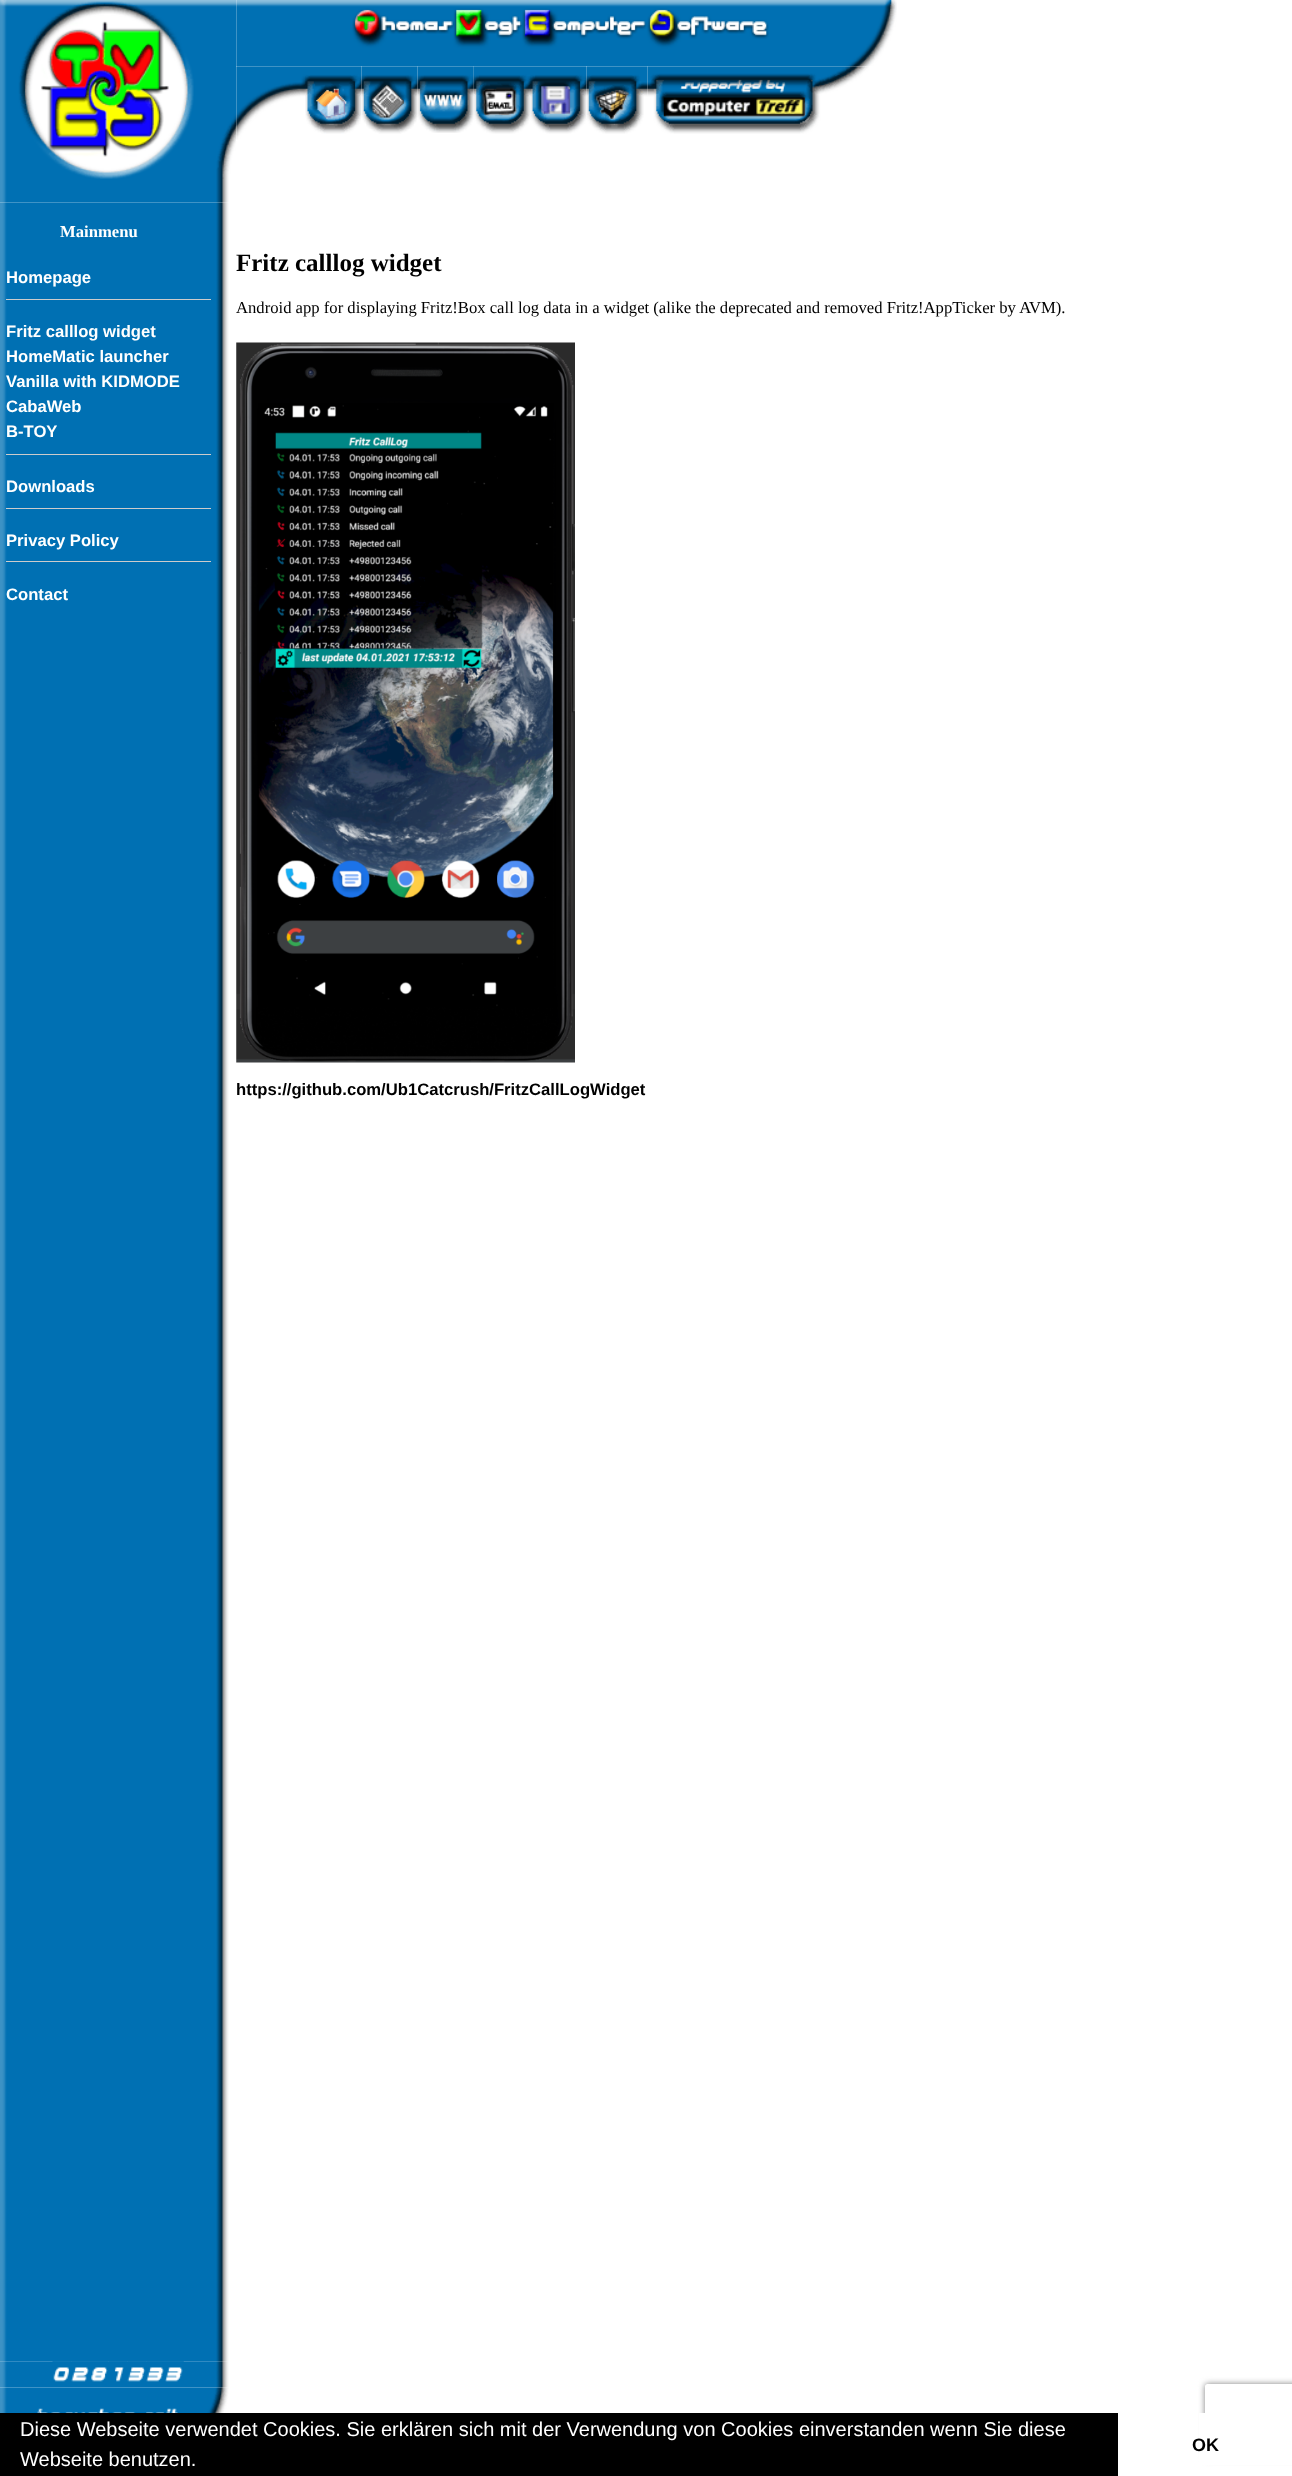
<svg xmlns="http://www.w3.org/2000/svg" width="1292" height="2476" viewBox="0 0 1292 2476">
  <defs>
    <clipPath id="clip1"><path d="M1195 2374H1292V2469H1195ZM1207.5 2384H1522.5C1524 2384 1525 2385 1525 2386.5V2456.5C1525 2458 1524 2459 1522.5 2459H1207.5C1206 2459 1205 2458 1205 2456.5V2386.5C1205 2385 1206 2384 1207.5 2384Z" clip-rule="evenodd"/></clipPath>
  </defs>
  <rect width="100%" height="100%" fill="#fff"/>
  <image x="0" y="0" width="237" height="203" href="img/1.png"/>
  <path d="M236 0h1v141H236z" fill="#fff"/>
  <image x="236" y="0" width="661" height="66" href="img/2.png"/>
  <image x="236" y="66" width="69" height="74" href="img/3.png"/>
  <image x="305" y="66" width="56" height="68" href="img/4.png"/>
  <image x="361" y="66" width="57" height="68" href="img/5.png"/>
  <image x="417" y="66" width="57" height="67" href="img/6.png"/>
  <image x="473" y="66" width="57" height="68" href="img/7.png"/>
  <image x="530" y="66" width="56" height="68" href="img/8.png"/>
  <image x="586" y="66" width="62" height="68" href="img/9.png"/>
  <image x="647" y="66" width="222" height="68" href="img/10.png"/>
  <image x="0" y="202" width="236" height="2160" href="img/11.png"/>
  <path d="M6 299h205v1H6z" fill="#ccc"/>
  <path d="M6 454h205v1H6z" fill="#ccc"/>
  <path d="M6 508h205v1H6z" fill="#ccc"/>
  <path d="M6 561h205v1H6z" fill="#ccc"/>
  <image x="236" y="342" width="339" height="721" href="img/12.png"/>
  <image x="0" y="2361" width="229" height="27" href="img/13.png"/>
  <image x="52" y="2361" width="20" height="21" href="img/14.png"/>
  <image x="71" y="2361" width="19" height="21" href="img/15.png"/>
  <image x="90" y="2361" width="19" height="21" href="img/16.png"/>
  <image x="109" y="2361" width="19" height="21" href="img/17.png"/>
  <image x="127" y="2361" width="20" height="21" href="img/18.png"/>
  <image x="146" y="2361" width="19" height="21" href="img/19.png"/>
  <image x="165" y="2361" width="19" height="21" href="img/20.png"/>
  <image x="0" y="2387" width="229" height="26" href="img/21.png"/>
  <path d="M0 2413h1118v63H0z" fill="#000"/>
  <g clip-path="url(#clip1)">
    <rect x="1205" y="2384" width="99" height="75" rx="2.5" fill="#808080" filter="blur(3px)"/>
  </g>
  <path d="M1199 2413h93v52H1199z" fill="#fff"/>
  <text x="60" y="237" font-family="Liberation Serif" font-size="16.65" font-weight="bold" fill="#fff">Mainmenu</text>
  <g font-family="Liberation Sans" font-size="16.65" font-weight="bold" fill="#fff">
    <text x="6" y="283">Homepage</text>
    <text x="6" y="337">Fritz calllog widget</text>
    <text x="6" y="362">HomeMatic launcher</text>
    <text x="6" y="387">Vanilla with KIDMODE</text>
    <text x="6" y="412">CabaWeb</text>
    <text x="6" y="437">B-TOY</text>
    <text x="6" y="492">Downloads</text>
    <text x="6" y="546">Privacy Policy</text>
    <text x="6" y="600">Contact</text>
  </g>
  <text x="236" y="271" font-family="Liberation Serif" font-size="25" font-weight="bold" fill="#000">Fritz calllog widget</text>
  <text x="236" y="313" font-family="Liberation Serif" font-size="16.65" fill="#000">Android app for displaying Fritz!Box call log data in a widget (alike the deprecated and removed Fritz!AppTicker by AVM).</text>
  <text x="236" y="1095" font-family="Liberation Sans" font-size="16.65" font-weight="bold" fill="#000">https://github.com/Ub1Catcrush/FritzCallLogWidget</text>
  <g font-family="Liberation Sans" font-size="20" fill="#fff">
    <text x="20" y="2436">Diese Webseite verwendet Cookies. Sie erklären sich mit der Verwendung von Cookies einverstanden wenn Sie diese</text>
    <text x="20" y="2466">Webseite benutzen.</text>
  </g>
  <text x="1192" y="2451" font-family="Liberation Sans" font-size="18" font-weight="bold" fill="#000">OK</text>
</svg>
